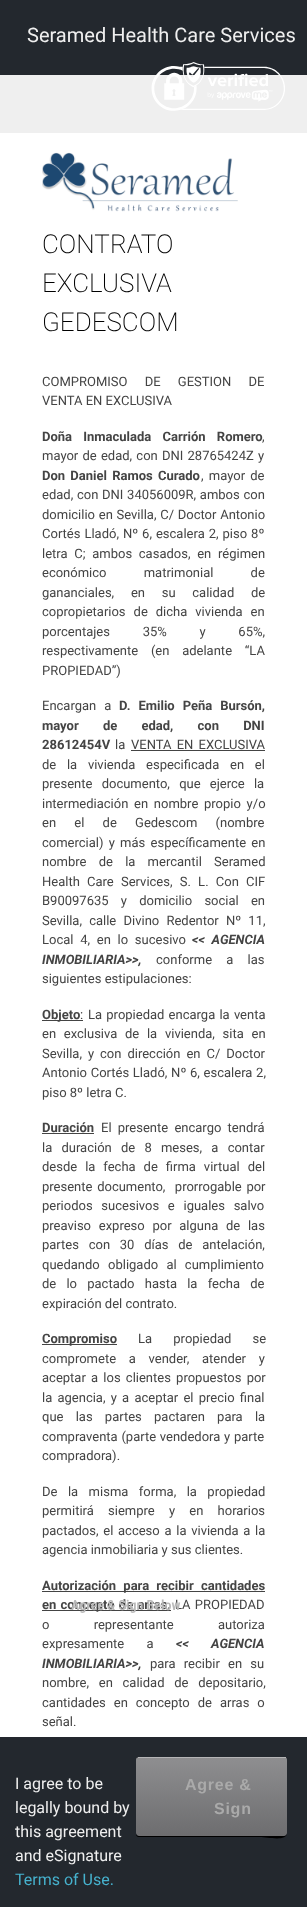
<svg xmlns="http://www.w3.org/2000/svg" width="307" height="1907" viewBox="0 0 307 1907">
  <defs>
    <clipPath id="clip1"><rect x="136" y="1757" width="151" height="79" rx="3"/></clipPath>
    <linearGradient id="g1" gradientUnits="userSpaceOnUse" x1="212" y1="1680" x2="212" y2="1758"><stop offset="0" stop-color="#8e8e90"/><stop offset="1" stop-color="#6d6d6f"/></linearGradient>
    <linearGradient id="g2" gradientUnits="userSpaceOnUse" x1="212" y1="1758" x2="212" y2="1836"><stop offset="0" stop-color="#8e8e90"/><stop offset="1" stop-color="#6d6d6f"/></linearGradient>
  </defs>
  <rect width="100%" height="100%" fill="#efefef"/>
  <path d="M0 0h307v75H0z" fill="#23282e"/>
  <image x="151" y="62" width="134" height="49" href="img/1.png"/>
  <path d="M0 133h307v1604H0z" fill="#fff"/>
  <image x="42" y="152" width="196" height="60" href="img/2.png"/>
  <path d="M131 750h134v1H131z" fill="#444"/>
  <path d="M42 1020h41v1H42z" fill="#444"/>
  <path d="M42 1133h52v1H42z" fill="#444"/>
  <path d="M42 1344h75v1H42z" fill="#444"/>
  <path d="M42 1591h223v1H42z" fill="#444"/>
  <path d="M42 1610h129v1H42z" fill="#444"/>
  <path d="M0 1737h307v170H0z" fill="#23282e"/>
  <path d="M136 1833C136 1835 136 1836 138 1837H260C267 1837 287 1842 287 1833C287 1835 286 1836 284 1836H139C137 1836 136 1835 136 1833Z" fill="#000"/>
  <g clip-path="url(#clip1)">
    <path d="M136 1757h151v1H136z" fill="url(#g1)"/>
    <path d="M136 1758H287V1833C287 1834.5 285.5 1836 284 1836H139C137.5 1836 136 1834.5 136 1833Z" fill="url(#g2)"/>
  </g>
  <path d="M138 1757h148v1H138z" fill="#b5b5b6"/>
  <text x="27" y="42" font-family="Roboto" font-size="20" fill="#efefef">Seramed Health Care Services</text>
  <g font-family="Roboto" font-size="26" font-weight="200" fill="#000">
    <text x="42" y="253">CONTRATO</text>
    <text x="42" y="292">EXCLUSIVA</text>
    <text x="42" y="331">GEDESCOM</text>
  </g>
  <g font-family="Roboto" font-size="13" fill="#444">
    <text x="42" y="386" word-spacing="14">COMPROMISO DE GESTION DE</text>
    <text x="42" y="405">VENTA EN EXCLUSIVA</text>
  </g>
  <text x="42" y="441" word-spacing="8" font-family="Roboto" font-size="13" font-weight="bold" fill="#444">Doña Inmaculada Carrión Romero</text>
  <g font-family="Roboto" font-size="13" fill="#444">
    <text x="262" y="441">,</text>
    <text x="42" y="460" word-spacing="1">mayor de edad, con DNI 28765424Z y</text>
  </g>
  <text x="42" y="480" word-spacing="2" font-family="Roboto" font-size="13" font-weight="bold" fill="#444">Don Daniel Ramos Curado</text>
  <g font-family="Roboto" font-size="13" fill="#444">
    <text x="201" y="480" word-spacing="2">, mayor de</text>
    <text x="42" y="499" word-spacing="0.5">edad, con DNI 34056009R, ambos con</text>
    <text x="42" y="519" word-spacing="0.5">domicilio en Sevilla, C/ Doctor Antonio</text>
    <text x="42" y="538" word-spacing="0.75">Cortés Lladó, Nº 6, escalera 2, piso 8º</text>
    <text x="42" y="558" word-spacing="3.5">letra C; ambos casados, en régimen</text>
    <text x="42" y="577" word-spacing="34">económico matrimonial de</text>
    <text x="42" y="597" word-spacing="13.5">gananciales, en su calidad de</text>
    <text x="42" y="616" word-spacing="4.75">copropietarios de dicha vivienda en</text>
    <text x="42" y="636" word-spacing="29.5">porcentajes 35% y 65%,</text>
    <text x="42" y="655" word-spacing="9.5">respectivamente (en adelante “LA</text>
    <text x="42" y="675">PROPIEDAD”)</text>
    <text x="42" y="710" word-spacing="4.75">Encargan a</text>
  </g>
  <g font-family="Roboto" font-size="13" font-weight="bold" fill="#444">
    <text x="119" y="710" word-spacing="4.75">D. Emilio Peña Bursón,</text>
    <text x="42" y="730" word-spacing="21">mayor de edad, con DNI</text>
    <text x="42" y="749">28612454V</text>
  </g>
  <g font-family="Roboto" font-size="13" fill="#444">
    <text x="115" y="749">la</text>
    <text x="131" y="749" word-spacing="2">VENTA EN EXCLUSIVA</text>
    <text x="42" y="769" word-spacing="7.5">de la vivienda especificada en el</text>
    <text x="42" y="788" word-spacing="6">presente documento, que ejerce la</text>
    <text x="42" y="808" word-spacing="2.5">intermediación en nombre propio y/o</text>
    <text x="42" y="827" word-spacing="15">en el de Gedescom (nombre</text>
    <text x="42" y="847" word-spacing="2">comercial) y más específicamente en</text>
    <text x="42" y="866" word-spacing="9">nombre de la mercantil Seramed</text>
    <text x="42" y="886" word-spacing="4">Health Care Services, S. L. Con CIF</text>
    <text x="42" y="905" word-spacing="9">B90097635 y domicilio social en</text>
    <text x="42" y="925" word-spacing="4">Sevilla, calle Divino Redentor Nº 11,</text>
    <text x="42" y="944" word-spacing="3.5">Local 4, en lo sucesivo</text>
  </g>
  <g font-family="Roboto" font-size="13" font-weight="bold" font-style="italic" fill="#444">
    <text x="192" y="944" word-spacing="3.5">&lt;&lt; AGENCIA</text>
    <text x="42" y="964">INMOBILIARIA&gt;&gt;,</text>
  </g>
  <g font-family="Roboto" font-size="13" fill="#444">
    <text x="156" y="964" word-spacing="11">conforme a las</text>
    <text x="42" y="983">siguientes estipulaciones:</text>
  </g>
  <text x="42" y="1019" font-family="Roboto" font-size="13" font-weight="bold" fill="#444">Objeto</text>
  <g font-family="Roboto" font-size="13" fill="#444">
    <text x="80" y="1019">:</text>
    <text x="88" y="1019" word-spacing="1">La propiedad encarga la venta</text>
    <text x="42" y="1038" word-spacing="4.5">en exclusiva de la vivienda, sita en</text>
    <text x="42" y="1058" word-spacing="2.75">Sevilla, y con dirección en C/ Doctor</text>
    <text x="42" y="1077" word-spacing="0.5">Antonio Cortés Lladó, Nº 6, escalera 2,</text>
    <text x="42" y="1097">piso 8º letra C.</text>
  </g>
  <text x="42" y="1132" font-family="Roboto" font-size="13" font-weight="bold" fill="#444">Duración</text>
  <g font-family="Roboto" font-size="13" fill="#444">
    <text x="101" y="1132" word-spacing="3">El presente encargo tendrá</text>
    <text x="42" y="1152" word-spacing="6">la duración de 8 meses, a contar</text>
    <text x="42" y="1171" word-spacing="4.75">desde la fecha de firma virtual del</text>
    <text x="42" y="1191" word-spacing="1.5" xml:space="preserve">presente documento,  prorrogable por</text>
    <text x="42" y="1210" word-spacing="5.5">periodos sucesivos e iguales salvo</text>
    <text x="42" y="1230" word-spacing="4.5">preaviso expreso por alguna de las</text>
    <text x="42" y="1249" word-spacing="6.5">partes con 30 días de antelación,</text>
    <text x="42" y="1269" word-spacing="5">quedando obligado al cumplimiento</text>
    <text x="42" y="1288" word-spacing="7">de lo pactado hasta la fecha de</text>
    <text x="42" y="1308">expiración del contrato.</text>
  </g>
  <text x="42" y="1343" font-family="Roboto" font-size="13" font-weight="bold" fill="#444">Compromiso</text>
  <g font-family="Roboto" font-size="13" fill="#444">
    <text x="138" y="1343" word-spacing="18">La propiedad se</text>
    <text x="42" y="1363" word-spacing="9.5">compromete a vender, atender y</text>
    <text x="42" y="1382" word-spacing="2">aceptar a los clientes propuestos por</text>
    <text x="42" y="1402" word-spacing="2">la agencia, y a aceptar el precio final</text>
    <text x="42" y="1421" word-spacing="9">que las partes pactaren para la</text>
    <text x="42" y="1441" word-spacing="0.5">compraventa (parte vendedora y parte</text>
    <text x="42" y="1460">compradora).</text>
    <text x="42" y="1496" word-spacing="7.25">De la misma forma, la propiedad</text>
    <text x="42" y="1515" word-spacing="11">permitirá siempre y en horarios</text>
    <text x="42" y="1535" word-spacing="1.5">pactados, el acceso a la vivienda a la</text>
    <text x="42" y="1554">agencia inmobiliaria y sus clientes.</text>
  </g>
  <g font-family="Roboto" font-size="13" font-weight="bold" fill="#444">
    <text x="42" y="1590" word-spacing="4">Autorización para recibir cantidades</text>
    <text x="42" y="1609" word-spacing="1">en concepto de arras.</text>
  </g>
  <g font-family="Roboto" font-size="13" fill="#444">
    <text x="175" y="1609" word-spacing="1">LA PROPIEDAD</text>
    <text x="42" y="1629" word-spacing="41">o representante autoriza</text>
    <text x="42" y="1648" word-spacing="19">expresamente a</text>
  </g>
  <g font-family="Roboto" font-size="13" font-weight="bold" font-style="italic" fill="#444">
    <text x="176" y="1648" word-spacing="19">&lt;&lt; AGENCIA</text>
    <text x="42" y="1668">INMOBILIARIA&gt;&gt;,</text>
  </g>
  <g font-family="Roboto" font-size="13" fill="#444">
    <text x="150" y="1668" word-spacing="5">para recibir en su</text>
    <text x="42" y="1687" word-spacing="6.5">nombre, en calidad de depositario,</text>
    <text x="42" y="1707" word-spacing="4.75">cantidades en concepto de arras o</text>
    <text x="42" y="1726">señal.</text>
  </g>
  <text x="71" y="1610" font-family="Roboto" font-size="14" font-weight="600" fill="#b9b9b9">Agree &amp; Sign Below</text>
  <g font-family="Liberation Sans" font-size="16" font-weight="bold" letter-spacing="0.75" fill="#aaa">
    <text x="185" y="1790">Agree &amp;</text>
    <text x="214" y="1814">Sign</text>
  </g>
  <g font-family="Roboto" font-size="16" fill="#efefef">
    <text x="15" y="1789">I agree to be</text>
    <text x="15" y="1813">legally bound by</text>
    <text x="15" y="1837">this agreement</text>
    <text x="15" y="1861">and eSignature</text>
  </g>
  <text x="15" y="1885" font-family="Roboto" font-size="16" fill="#46b1cd">Terms of Use.</text>
</svg>
